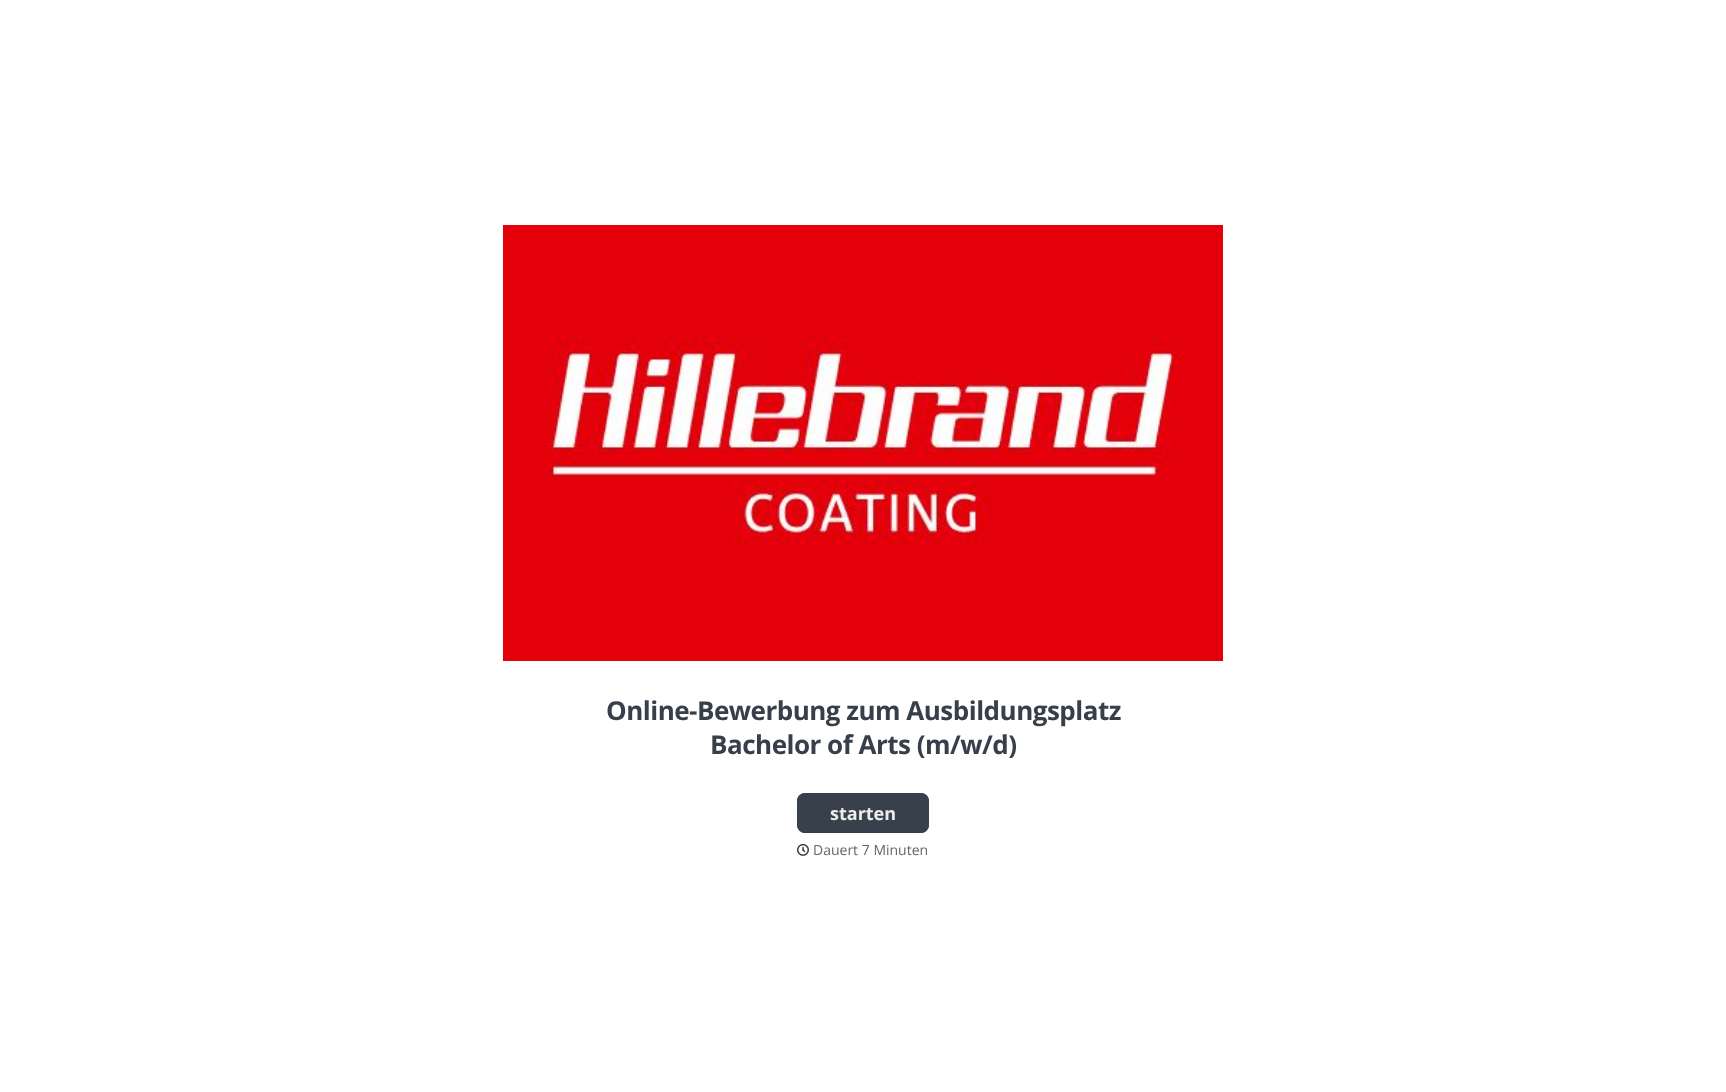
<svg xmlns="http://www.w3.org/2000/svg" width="1726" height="1092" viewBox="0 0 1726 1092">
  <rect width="100%" height="100%" fill="#fff"/>
  <image x="503" y="225" width="720" height="436" href="img/1.png"/>
  <rect x="797.5" y="793.5" width="131" height="39" rx="7.5" fill="none" stroke="#38414b"/>
  <rect x="797" y="793" width="132" height="40" rx="8" fill="#38414b" filter="blur(0.5px)"/>
  <image x="797" y="844" width="12" height="12" href="img/2.png"/>
  <g font-family="Open Sans" font-size="26" font-weight="bold" letter-spacing="-0.5" fill="#37404a">
    <text x="606" y="720">Online-Bewerbung zum Ausbildungsplatz</text>
    <text x="710" y="754">Bachelor of Arts (m/w/d)</text>
  </g>
  <text x="830" y="820" font-family="Open Sans" font-size="18" font-weight="bold" fill="#ebeced">starten</text>
  <text x="813" y="855" font-family="Open Sans" font-size="14" fill="#60676f">Dauert 7 Minuten</text>
</svg>
